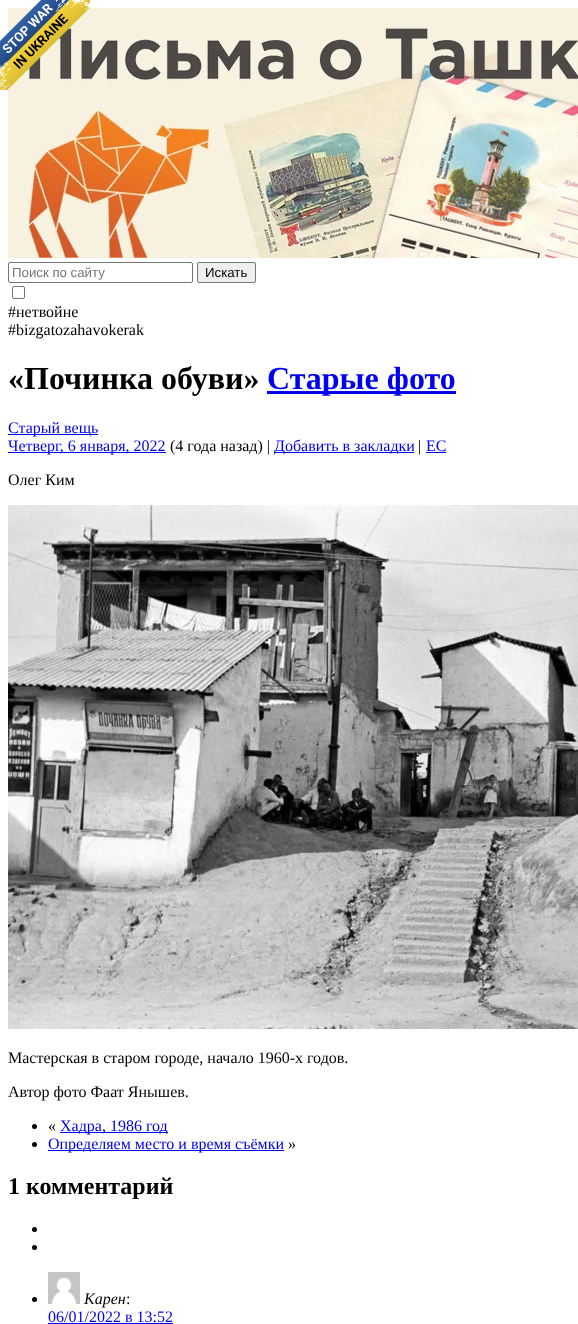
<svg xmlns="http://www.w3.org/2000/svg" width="578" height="1324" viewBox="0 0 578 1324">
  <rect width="100%" height="100%" fill="#fff"/>
  <image x="8" y="8" width="570" height="250" href="img/2.png"/>
  <image x="0" y="0" width="90" height="90" href="img/1.png"/>
  <rect x="8.5" y="262.5" width="184" height="20" rx="1.5" fill="none" stroke="#767676"/>
  <rect x="197.5" y="262.5" width="58" height="20" rx="1.5" fill="#efefef" stroke="#767676"/>
  <rect x="12.5" y="286.5" width="12" height="12" rx="1.5" fill="none" stroke="#767676"/>
  <path d="M267 391h189v3H267z" fill="#00e"/>
  <path d="M8 434h90v1H8z" fill="#00e"/>
  <path d="M8 452h158v1H8z" fill="#00e"/>
  <path d="M274 452h140v1H274z" fill="#00e"/>
  <path d="M426 452h20v1H426z" fill="#00e"/>
  <image x="8" y="505" width="570" height="524" href="img/3.png"/>
  <circle cx="34.5" cy="1126.5" r="2.5" fill="#000"/>
  <path d="M60 1132h108v1H60z" fill="#00e"/>
  <circle cx="34.5" cy="1144.5" r="2.5" fill="#000"/>
  <path d="M48 1150h236v1H48z" fill="#00e"/>
  <circle cx="34.5" cy="1229.5" r="2.5" fill="#000"/>
  <circle cx="34.5" cy="1247.5" r="2.5" fill="#000"/>
  <circle cx="34.5" cy="1299.5" r="2.5" fill="#000"/>
  <image x="48" y="1272" width="32" height="32" href="img/4.png"/>
  <path d="M48 1323h125v1H48z" fill="#00e"/>
  <text x="12" y="277" font-family="Liberation Sans" font-size="13.25" fill="#757575">Поиск по сайту</text>
  <text x="205" y="277" font-family="Liberation Sans" font-size="13.25" fill="#000">Искать</text>
  <g font-family="Liberation Serif" font-size="16" fill="#000">
    <text x="8" y="317">#нетвойне</text>
    <text x="8" y="335">#bizgatozahavokerak</text>
  </g>
  <text x="8" y="389" font-family="Liberation Serif" font-size="32" font-weight="bold" fill="#000">«Починка обуви»</text>
  <text x="267" y="389" font-family="Liberation Serif" font-size="32" font-weight="bold" fill="#00e">Старые фото</text>
  <g font-family="Liberation Serif" font-size="16" fill="#00e">
    <text x="8" y="433">Старый вещь</text>
    <text x="8" y="451">Четверг, 6 января, 2022</text>
  </g>
  <text x="170" y="451" font-family="Liberation Serif" font-size="16" fill="#000">(4 года назад) |</text>
  <text x="274" y="451" font-family="Liberation Serif" font-size="16" fill="#00e">Добавить в закладки</text>
  <text x="418" y="451" font-family="Liberation Serif" font-size="16" fill="#000">|</text>
  <text x="426" y="451" font-family="Liberation Serif" font-size="16" fill="#00e">EC</text>
  <g font-family="Liberation Serif" font-size="16" fill="#000">
    <text x="8" y="485">Олег Ким</text>
    <text x="8" y="1063">Мастерская в старом городе, начало 1960-х годов.</text>
    <text x="8" y="1097">Автор фото Фаат Янышев.</text>
    <text x="48" y="1131">«</text>
  </g>
  <g font-family="Liberation Serif" font-size="16" fill="#00e">
    <text x="60" y="1131">Хадра, 1986 год</text>
    <text x="48" y="1149">Определяем место и время съёмки</text>
  </g>
  <text x="288" y="1149" font-family="Liberation Serif" font-size="16" fill="#000">»</text>
  <text x="8" y="1194" font-family="Liberation Serif" font-size="24" font-weight="bold" fill="#000">1 комментарий</text>
  <text x="84" y="1304" font-family="Liberation Serif" font-size="16" font-style="italic" fill="#000">Карен</text>
  <text x="126" y="1304" font-family="Liberation Serif" font-size="16" fill="#000">:</text>
  <text x="48" y="1322" font-family="Liberation Serif" font-size="16" fill="#00e">06/01/2022 в 13:52</text>
</svg>
